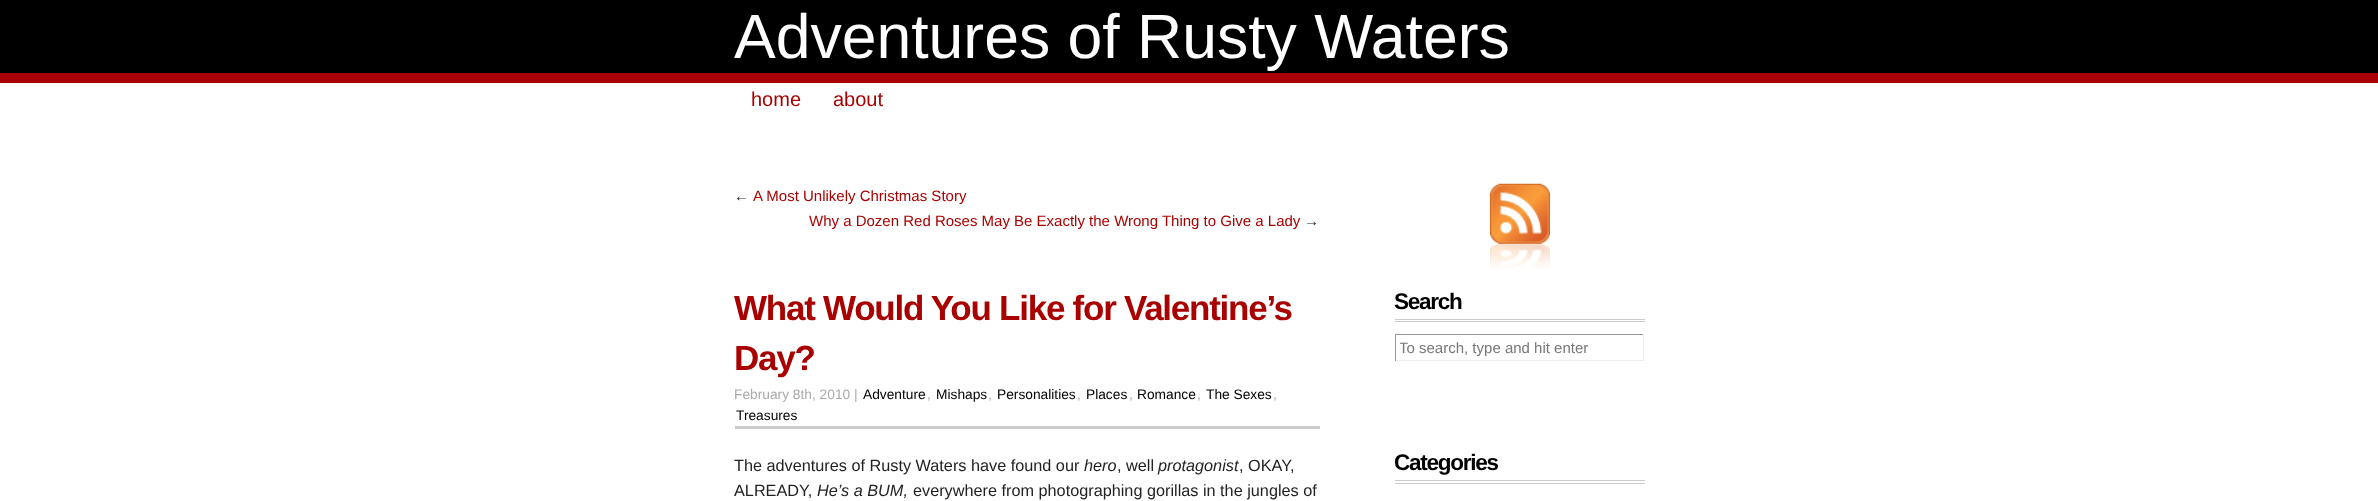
<svg xmlns="http://www.w3.org/2000/svg" width="2378" height="501" viewBox="0 0 2378 501">
  <defs>
    <clipPath id="clip1"><path d="M1400 339h239v17H1400z"/></clipPath>
  </defs>
  <rect width="100%" height="100%" fill="#fff"/>
  <path d="M0 0h2378v73H0z" fill="#000"/>
  <path d="M0 73h2378v10H0z" fill="#a90000"/>
  <path d="M735 426h585v3H735z" fill="#ccc"/>
  <image x="1490" y="183" width="60" height="86" href="img/1.png"/>
  <path d="M1395 319h250v1H1395z" fill="#ccc"/>
  <path d="M1395 321h250v1H1395z" fill="#ccc"/>
  <path d="M1395 334h249v1H1395z" fill="#999"/>
  <path d="M1643 334h1v27H1643z" fill="#eee"/>
  <path d="M1395 360h249v1H1395z" fill="#eee"/>
  <path d="M1395 334h1v27H1395z" fill="#999"/>
  <path d="M1395 480h250v1H1395z" fill="#ccc"/>
  <path d="M1395 483h250v1H1395z" fill="#ccc"/>
  <text x="734" y="58" font-family="Liberation Sans" font-size="62.5" fill="#fff">Adventures of Rusty Waters</text>
  <g font-family="Liberation Sans" font-size="20" fill="#a90000">
    <text x="751" y="106">home</text>
    <text x="833" y="106">about</text>
  </g>
  <text x="734" y="201" font-family="Liberation Sans" font-size="15" fill="#222">←</text>
  <g font-family="Liberation Sans" font-size="15" fill="#a90000">
    <text x="753" y="201">A Most Unlikely Christmas Story</text>
    <text x="809" y="226">Why a Dozen Red Roses May Be Exactly the Wrong Thing to Give a Lady</text>
  </g>
  <text x="1304" y="226" font-family="Liberation Sans" font-size="15" fill="#222">→</text>
  <g font-family="Liberation Sans" font-size="35" font-weight="bold" letter-spacing="-1.25" fill="#a90000">
    <text x="734" y="320">What Would You Like for Valentine’s</text>
    <text x="734" y="370">Day?</text>
  </g>
  <text x="734" y="399" font-family="Liberation Sans" font-size="13.75" fill="#aaa">February 8th, 2010 |</text>
  <text x="863" y="399" font-family="Liberation Sans" font-size="13.75" fill="#000">Adventure</text>
  <text x="927" y="399" font-family="Liberation Sans" font-size="13.75" fill="#aaa">,</text>
  <text x="936" y="399" font-family="Liberation Sans" font-size="13.75" fill="#000">Mishaps</text>
  <text x="988" y="399" font-family="Liberation Sans" font-size="13.75" fill="#aaa">,</text>
  <text x="997" y="399" font-family="Liberation Sans" font-size="13.75" fill="#000">Personalities</text>
  <text x="1077" y="399" font-family="Liberation Sans" font-size="13.75" fill="#aaa">,</text>
  <text x="1086" y="399" font-family="Liberation Sans" font-size="13.75" fill="#000">Places</text>
  <text x="1129" y="399" font-family="Liberation Sans" font-size="13.75" fill="#aaa">,</text>
  <text x="1137" y="399" font-family="Liberation Sans" font-size="13.75" fill="#000">Romance</text>
  <text x="1197" y="399" font-family="Liberation Sans" font-size="13.75" fill="#aaa">,</text>
  <text x="1206" y="399" font-family="Liberation Sans" font-size="13.75" fill="#000">The Sexes</text>
  <text x="1273" y="399" font-family="Liberation Sans" font-size="13.75" fill="#aaa">,</text>
  <text x="736" y="420" font-family="Liberation Sans" font-size="13.75" fill="#000">Treasures</text>
  <text x="734" y="471" font-family="Liberation Sans" font-size="16.25" fill="#222">The adventures of Rusty Waters have found our</text>
  <text x="1084" y="471" font-family="Liberation Sans" font-size="16.25" font-style="italic" fill="#222">hero</text>
  <text x="1117" y="471" font-family="Liberation Sans" font-size="16.25" fill="#222">, well</text>
  <text x="1158" y="471" font-family="Liberation Sans" font-size="16.25" font-style="italic" fill="#222">protagonist</text>
  <g font-family="Liberation Sans" font-size="16.25" fill="#222">
    <text x="1239" y="471">, OKAY,</text>
    <text x="734" y="496">ALREADY,</text>
  </g>
  <text x="817" y="496" font-family="Liberation Sans" font-size="16.25" font-style="italic" fill="#222">He’s a BUM,</text>
  <text x="913" y="496" font-family="Liberation Sans" font-size="16.25" fill="#222">everywhere from photographing gorillas in the jungles of</text>
  <text x="1394" y="309" font-family="Liberation Sans" font-size="22.5" font-weight="bold" letter-spacing="-1.25" fill="#000">Search</text>
  <g clip-path="url(#clip1)">
    <text x="1399" y="353" font-family="Liberation Sans" font-size="15" fill="#777">To search, type and hit enter</text>
  </g>
  <text x="1394" y="470" font-family="Liberation Sans" font-size="22.5" font-weight="bold" letter-spacing="-1.25" fill="#000">Categories</text>
</svg>
